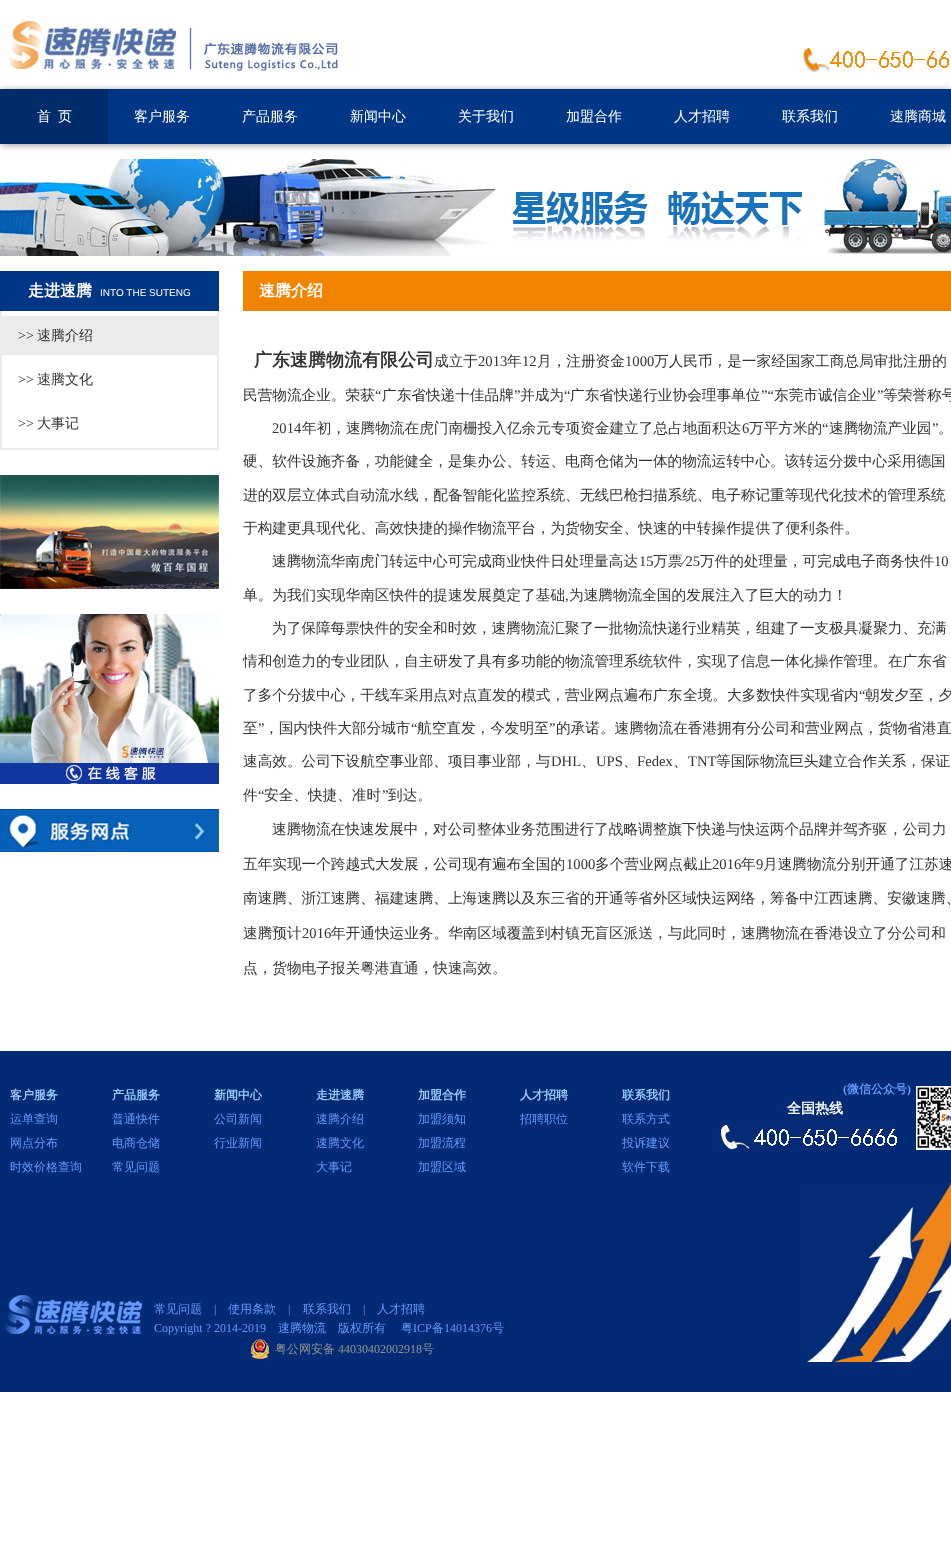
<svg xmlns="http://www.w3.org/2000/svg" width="951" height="1553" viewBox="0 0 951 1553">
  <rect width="100%" height="100%" fill="#fff"/>
  <image x="8" y="19" width="331" height="52" href="img/1.png"/>
  <image x="802" y="48" width="149" height="25" href="img/2.png"/>
  <path d="M1 90h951v55H1z" fill="#999" filter="blur(3.5px)"/>
  <path d="M108 89h843v55H108z" fill="#003686"/>
  <path d="M0 89h108v55H0z" fill="#002c6c"/>
  <image x="0" y="159" width="951" height="97" href="img/3.png"/>
  <path d="M0 271h219v40H0z" fill="#003686"/>
  <path d="M217 311h2v139H217z" fill="#ebebeb"/>
  <path d="M0 448h219v2H0z" fill="#ebebeb"/>
  <path d="M0 311h2v139H0z" fill="#ebebeb"/>
  <path d="M2 316h215v39H2z" fill="#ebebeb"/>
  <image x="0" y="475" width="219" height="114" href="img/4.png"/>
  <image x="0" y="614" width="219" height="170" href="img/5.png"/>
  <image x="0" y="809" width="219" height="43" href="img/6.png"/>
  <path d="M243 271h708v40H243z" fill="#f08300"/>
  <path d="M0 1051h951v341H0z" fill="#032b75"/>
  <image x="916" y="1086" width="35" height="64" href="img/7.png"/>
  <image x="715" y="1125" width="182" height="25" href="img/8.png"/>
  <image x="5" y="1294" width="137" height="40" href="img/9.png"/>
  <image x="251" y="1339" width="18" height="20" href="img/10.png"/>
  <image x="806" y="1182" width="145" height="180" href="img/11.png"/>
  <g font-family="WenQuanYi Zen Hei" font-size="14" font-weight="500" fill="#fff">
    <text x="37" y="121">首</text>
    <text x="58" y="121">页</text>
    <text x="134" y="121">客户服务</text>
    <text x="242" y="121">产品服务</text>
    <text x="350" y="121">新闻中心</text>
    <text x="458" y="121">关于我们</text>
    <text x="566" y="121">加盟合作</text>
    <text x="674" y="121">人才招聘</text>
    <text x="782" y="121">联系我们</text>
    <text x="890" y="121">速腾商城</text>
  </g>
  <text x="28" y="296" font-family="WenQuanYi Zen Hei" font-size="16" font-weight="bold" fill="#fff">走进速腾</text>
  <text x="100" y="296" font-family="Liberation Sans" font-size="10" fill="#fff">INTO THE SUTENG</text>
  <text x="18" y="340" font-family="Liberation Serif" font-size="14" fill="#333">&gt;&gt;</text>
  <text x="37" y="340" font-family="WenQuanYi Zen Hei" font-size="14" font-weight="500" fill="#333">速腾介绍</text>
  <text x="18" y="384" font-family="Liberation Serif" font-size="14" fill="#333">&gt;&gt;</text>
  <text x="37" y="384" font-family="WenQuanYi Zen Hei" font-size="14" font-weight="500" fill="#333">速腾文化</text>
  <text x="18" y="428" font-family="Liberation Serif" font-size="14" fill="#333">&gt;&gt;</text>
  <text x="37" y="428" font-family="WenQuanYi Zen Hei" font-size="14" font-weight="500" fill="#333">大事记</text>
  <text x="259" y="296" font-family="WenQuanYi Zen Hei" font-size="16" font-weight="bold" fill="#fff">速腾介绍</text>
  <text x="254" y="366" font-family="WenQuanYi Zen Hei" font-size="18" font-weight="bold" fill="#333">广东速腾物流有限公司</text>
  <text x="434" y="366" font-family="WenQuanYi Zen Hei" font-size="14.65" font-weight="500" fill="#333">成立于</text>
  <text x="478" y="366" font-family="Liberation Serif" font-size="14.65" fill="#333">2013</text>
  <text x="507" y="366" font-family="WenQuanYi Zen Hei" font-size="14.65" font-weight="500" fill="#333">年</text>
  <text x="522" y="366" font-family="Liberation Serif" font-size="14.65" fill="#333">12</text>
  <text x="537" y="366" font-family="WenQuanYi Zen Hei" font-size="14.65" font-weight="500" fill="#333">月，注册资金</text>
  <text x="625" y="366" font-family="Liberation Serif" font-size="14.65" fill="#333">1000</text>
  <g font-family="WenQuanYi Zen Hei" font-size="14.65" font-weight="500" fill="#333">
    <text x="654" y="366">万人民币，是一家经国家工商总局审批注册的</text>
    <text x="243" y="400">民营物流企业。荣获</text>
  </g>
  <text x="375" y="400" font-family="Liberation Serif" font-size="14.65" fill="#333">“</text>
  <text x="382" y="400" font-family="WenQuanYi Zen Hei" font-size="14.65" font-weight="500" fill="#333">广东省快递十佳品牌</text>
  <text x="514" y="400" font-family="Liberation Serif" font-size="14.65" fill="#333">”</text>
  <text x="520" y="400" font-family="WenQuanYi Zen Hei" font-size="14.65" font-weight="500" fill="#333">并成为</text>
  <text x="564" y="400" font-family="Liberation Serif" font-size="14.65" fill="#333">“</text>
  <text x="570" y="400" font-family="WenQuanYi Zen Hei" font-size="14.65" font-weight="500" fill="#333">广东省快递行业协会理事单位</text>
  <text x="761" y="400" font-family="Liberation Serif" font-size="14.65" fill="#333">”“</text>
  <text x="774" y="400" font-family="WenQuanYi Zen Hei" font-size="14.65" font-weight="500" fill="#333">东莞市诚信企业</text>
  <text x="877" y="400" font-family="Liberation Serif" font-size="14.65" fill="#333">”</text>
  <text x="883" y="400" font-family="WenQuanYi Zen Hei" font-size="14.65" font-weight="500" fill="#333">等荣誉称号</text>
  <text x="272" y="433" font-family="Liberation Serif" font-size="14.65" fill="#333">2014</text>
  <text x="302" y="433" font-family="WenQuanYi Zen Hei" font-size="14.65" font-weight="500" fill="#333">年初，速腾物流在虎门南栅投入亿余元专项资金建立了总占地面积达</text>
  <text x="742" y="433" font-family="Liberation Serif" font-size="14.65" fill="#333">6</text>
  <text x="749" y="433" font-family="WenQuanYi Zen Hei" font-size="14.65" font-weight="500" fill="#333">万平方米的</text>
  <text x="822" y="433" font-family="Liberation Serif" font-size="14.65" fill="#333">“</text>
  <text x="829" y="433" font-family="WenQuanYi Zen Hei" font-size="14.65" font-weight="500" fill="#333">速腾物流产业园</text>
  <text x="932" y="433" font-family="Liberation Serif" font-size="14.65" fill="#333">”</text>
  <g font-family="WenQuanYi Zen Hei" font-size="14.65" font-weight="500" fill="#333">
    <text x="938" y="433">。</text>
    <text x="243" y="466">硬、软件设施齐备，功能健全，是集办公、转运、电商仓储为一体的物流运转中心。该转运分拨中心采用德国</text>
    <text x="243" y="500">进的双层立体式自动流水线，配备智能化监控系统、无线巴枪扫描系统、电子称记重等现代化技术的管理系统</text>
    <text x="243" y="533">于构建更具现代化、高效快捷的操作物流平台，为货物安全、快速的中转操作提供</text>
    <text x="771" y="533">了便利条件。</text>
    <text x="272" y="566">速腾物流华南虎门转运中心可完成商业快件日处理量高达</text>
  </g>
  <text x="639" y="566" font-family="Liberation Serif" font-size="14.65" fill="#333">15</text>
  <text x="653" y="566" font-family="WenQuanYi Zen Hei" font-size="14.65" font-weight="500" fill="#333">万票</text>
  <text x="683" y="566" font-family="Liberation Serif" font-size="14.65" fill="#333">∕25</text>
  <text x="700" y="566" font-family="WenQuanYi Zen Hei" font-size="14.65" font-weight="500" fill="#333">万件的处理量，可完成电子商务快件</text>
  <text x="934" y="566" font-family="Liberation Serif" font-size="14.65" fill="#333">10</text>
  <text x="243" y="600" font-family="WenQuanYi Zen Hei" font-size="14.65" font-weight="500" fill="#333">单。为我们实现华南区快件的提速发展奠定了基础</text>
  <text x="565" y="600" font-family="Liberation Serif" font-size="14.65" fill="#333">,</text>
  <g font-family="WenQuanYi Zen Hei" font-size="14.65" font-weight="500" fill="#333">
    <text x="569" y="600">为速腾物流全国的发展注入了巨大的动力！</text>
    <text x="272" y="633">为了保障每票快件的安全和时效，速腾物流汇聚了一批物流快递行业精英，</text>
    <text x="756" y="633">组建了一支极具凝聚力、充满</text>
    <text x="243" y="666">情和创造力的专业团队，自主研发了具有多功能的物流管理系统软件，实现了信息一体化操作管理。</text>
    <text x="888" y="666">在广东省</text>
    <text x="243" y="700">了多个分拔中心，干线车采用点对点直发的模式，营业网点遍布广东</text>
    <text x="683" y="700">全境。大多数快件实现省内</text>
  </g>
  <text x="859" y="700" font-family="Liberation Serif" font-size="14.65" fill="#333">“</text>
  <g font-family="WenQuanYi Zen Hei" font-size="14.65" font-weight="500" fill="#333">
    <text x="865" y="700">朝发夕至，夕</text>
    <text x="243" y="733">至</text>
  </g>
  <text x="258" y="733" font-family="Liberation Serif" font-size="14.65" fill="#333">”</text>
  <text x="264" y="733" font-family="WenQuanYi Zen Hei" font-size="14.65" font-weight="500" fill="#333">，国内快件大部分城市</text>
  <text x="411" y="733" font-family="Liberation Serif" font-size="14.65" fill="#333">“</text>
  <text x="417" y="733" font-family="WenQuanYi Zen Hei" font-size="14.65" font-weight="500" fill="#333">航空直发，今发明至</text>
  <text x="549" y="733" font-family="Liberation Serif" font-size="14.65" fill="#333">”</text>
  <g font-family="WenQuanYi Zen Hei" font-size="14.65" font-weight="500" fill="#333">
    <text x="556" y="733">的承诺。速腾物流在香港拥有分公司和营业网点，货物省港直</text>
    <text x="243" y="766">速高效。公司下设航空事业部、项目事业部，与</text>
  </g>
  <text x="551" y="766" font-family="Liberation Serif" font-size="14.65" fill="#333">DHL</text>
  <text x="581" y="766" font-family="WenQuanYi Zen Hei" font-size="14.65" font-weight="500" fill="#333">、</text>
  <text x="596" y="766" font-family="Liberation Serif" font-size="14.65" fill="#333">UPS</text>
  <text x="623" y="766" font-family="WenQuanYi Zen Hei" font-size="14.65" font-weight="500" fill="#333">、</text>
  <text x="637" y="766" font-family="Liberation Serif" font-size="14.65" fill="#333">Fedex</text>
  <text x="673" y="766" font-family="WenQuanYi Zen Hei" font-size="14.65" font-weight="500" fill="#333">、</text>
  <text x="688" y="766" font-family="Liberation Serif" font-size="14.65" fill="#333">TNT</text>
  <g font-family="WenQuanYi Zen Hei" font-size="14.65" font-weight="500" fill="#333">
    <text x="716" y="766">等国际物流巨头建立合作关系，保证</text>
    <text x="243" y="800">件</text>
  </g>
  <text x="258" y="800" font-family="Liberation Serif" font-size="14.65" fill="#333">“</text>
  <text x="264" y="800" font-family="WenQuanYi Zen Hei" font-size="14.65" font-weight="500" fill="#333">安全、快捷、准时</text>
  <text x="382" y="800" font-family="Liberation Serif" font-size="14.65" fill="#333">”</text>
  <g font-family="WenQuanYi Zen Hei" font-size="14.65" font-weight="500" fill="#333">
    <text x="388" y="800">到达。</text>
    <text x="272" y="834">速腾物流在快速发展中，对公司整体业务范围进行了战略调整旗下快递与快运两个品牌并驾齐驱</text>
    <text x="888" y="834">，公司力</text>
    <text x="243" y="869">五年实现一个跨越式大发展，公司现有遍布全国的</text>
  </g>
  <text x="566" y="869" font-family="Liberation Serif" font-size="14.65" fill="#333">1000</text>
  <g font-family="WenQuanYi Zen Hei" font-size="14.65" font-weight="500" fill="#333">
    <text x="595" y="869">多个营业网点</text>
    <text x="683" y="869">截止</text>
  </g>
  <text x="712" y="869" font-family="Liberation Serif" font-size="14.65" fill="#333">2016</text>
  <text x="741" y="869" font-family="WenQuanYi Zen Hei" font-size="14.65" font-weight="500" fill="#333">年</text>
  <text x="756" y="869" font-family="Liberation Serif" font-size="14.65" fill="#333">9</text>
  <g font-family="WenQuanYi Zen Hei" font-size="14.65" font-weight="500" fill="#333">
    <text x="763" y="869">月速腾物流分别开通了江苏速</text>
    <text x="243" y="903">南速腾、浙江速腾、福建速腾、上海速腾以及东三省的开通等省外区域快运网络，筹备中江西速腾、安徽速腾、</text>
    <text x="243" y="938">速腾预计</text>
  </g>
  <text x="302" y="938" font-family="Liberation Serif" font-size="14.65" fill="#333">2016</text>
  <g font-family="WenQuanYi Zen Hei" font-size="14.65" font-weight="500" fill="#333">
    <text x="331" y="938">年开通快运业务。华南区域覆盖到村镇无盲区派送，与此同时，速腾物流在香港设立了分公司和</text>
    <text x="243" y="973">点，货物电子报关粤港直通，快速高效。</text>
  </g>
  <text x="10" y="1099" font-family="WenQuanYi Zen Hei" font-size="12" font-weight="bold" fill="#9cf">客户服务</text>
  <g font-family="WenQuanYi Zen Hei" font-size="12" font-weight="500" fill="#69f">
    <text x="10" y="1123">运单查询</text>
    <text x="10" y="1147">网点分布</text>
    <text x="10" y="1171">时效价格查询</text>
  </g>
  <text x="112" y="1099" font-family="WenQuanYi Zen Hei" font-size="12" font-weight="bold" fill="#9cf">产品服务</text>
  <g font-family="WenQuanYi Zen Hei" font-size="12" font-weight="500" fill="#69f">
    <text x="112" y="1123">普通快件</text>
    <text x="112" y="1147">电商仓储</text>
    <text x="112" y="1171">常见问题</text>
  </g>
  <text x="214" y="1099" font-family="WenQuanYi Zen Hei" font-size="12" font-weight="bold" fill="#9cf">新闻中心</text>
  <g font-family="WenQuanYi Zen Hei" font-size="12" font-weight="500" fill="#69f">
    <text x="214" y="1123">公司新闻</text>
    <text x="214" y="1147">行业新闻</text>
  </g>
  <text x="316" y="1099" font-family="WenQuanYi Zen Hei" font-size="12" font-weight="bold" fill="#9cf">走进速腾</text>
  <g font-family="WenQuanYi Zen Hei" font-size="12" font-weight="500" fill="#69f">
    <text x="316" y="1123">速腾介绍</text>
    <text x="316" y="1147">速腾文化</text>
    <text x="316" y="1171">大事记</text>
  </g>
  <text x="418" y="1099" font-family="WenQuanYi Zen Hei" font-size="12" font-weight="bold" fill="#9cf">加盟合作</text>
  <g font-family="WenQuanYi Zen Hei" font-size="12" font-weight="500" fill="#69f">
    <text x="418" y="1123">加盟须知</text>
    <text x="418" y="1147">加盟流程</text>
    <text x="418" y="1171">加盟区域</text>
  </g>
  <text x="520" y="1099" font-family="WenQuanYi Zen Hei" font-size="12" font-weight="bold" fill="#9cf">人才招聘</text>
  <text x="520" y="1123" font-family="WenQuanYi Zen Hei" font-size="12" font-weight="500" fill="#69f">招聘职位</text>
  <text x="622" y="1099" font-family="WenQuanYi Zen Hei" font-size="12" font-weight="bold" fill="#9cf">联系我们</text>
  <g font-family="WenQuanYi Zen Hei" font-size="12" font-weight="500" fill="#69f">
    <text x="622" y="1123">联系方式</text>
    <text x="622" y="1147">投诉建议</text>
    <text x="622" y="1171">软件下载</text>
  </g>
  <text x="787" y="1113" font-family="WenQuanYi Zen Hei" font-size="14" font-weight="bold" fill="#fff">全国热线</text>
  <text x="843" y="1093" font-family="Liberation Serif" font-size="12" font-weight="bold" fill="#69f">(</text>
  <text x="847" y="1093" font-family="WenQuanYi Zen Hei" font-size="12" font-weight="bold" fill="#69f">微信公众号</text>
  <text x="907" y="1093" font-family="Liberation Serif" font-size="12" font-weight="bold" fill="#69f">)</text>
  <text x="154" y="1313" font-family="WenQuanYi Zen Hei" font-size="12" font-weight="500" fill="#69f">常见问题</text>
  <text x="214" y="1313" font-family="Liberation Serif" font-size="12" fill="#69f">|</text>
  <text x="228" y="1313" font-family="WenQuanYi Zen Hei" font-size="12" font-weight="500" fill="#69f">使用条款</text>
  <text x="288" y="1313" font-family="Liberation Serif" font-size="12" fill="#69f">|</text>
  <text x="303" y="1313" font-family="WenQuanYi Zen Hei" font-size="12" font-weight="500" fill="#69f">联系我们</text>
  <text x="363" y="1313" font-family="Liberation Serif" font-size="12" fill="#69f">|</text>
  <text x="377" y="1313" font-family="WenQuanYi Zen Hei" font-size="12" font-weight="500" fill="#69f">人才招聘</text>
  <text x="154" y="1332" font-family="Liberation Serif" font-size="12" fill="#69f">Copyright ? 2014-2019</text>
  <g font-family="WenQuanYi Zen Hei" font-size="12" font-weight="500" fill="#69f">
    <text x="278" y="1332">速腾物流　版权所有</text>
    <text x="401" y="1332">粤</text>
  </g>
  <text x="413" y="1332" font-family="Liberation Serif" font-size="12" fill="#69f">ICP</text>
  <text x="432" y="1332" font-family="WenQuanYi Zen Hei" font-size="12" font-weight="500" fill="#69f">备</text>
  <text x="444" y="1332" font-family="Liberation Serif" font-size="12" fill="#69f">14014376</text>
  <text x="492" y="1332" font-family="WenQuanYi Zen Hei" font-size="12" font-weight="500" fill="#69f">号</text>
  <text x="275" y="1353" font-family="WenQuanYi Zen Hei" font-size="12" font-weight="500" fill="#939393">粤公网安备</text>
  <text x="338" y="1353" font-family="Liberation Serif" font-size="12" fill="#939393">44030402002918</text>
  <text x="422" y="1353" font-family="WenQuanYi Zen Hei" font-size="12" font-weight="500" fill="#939393">号</text>
</svg>
